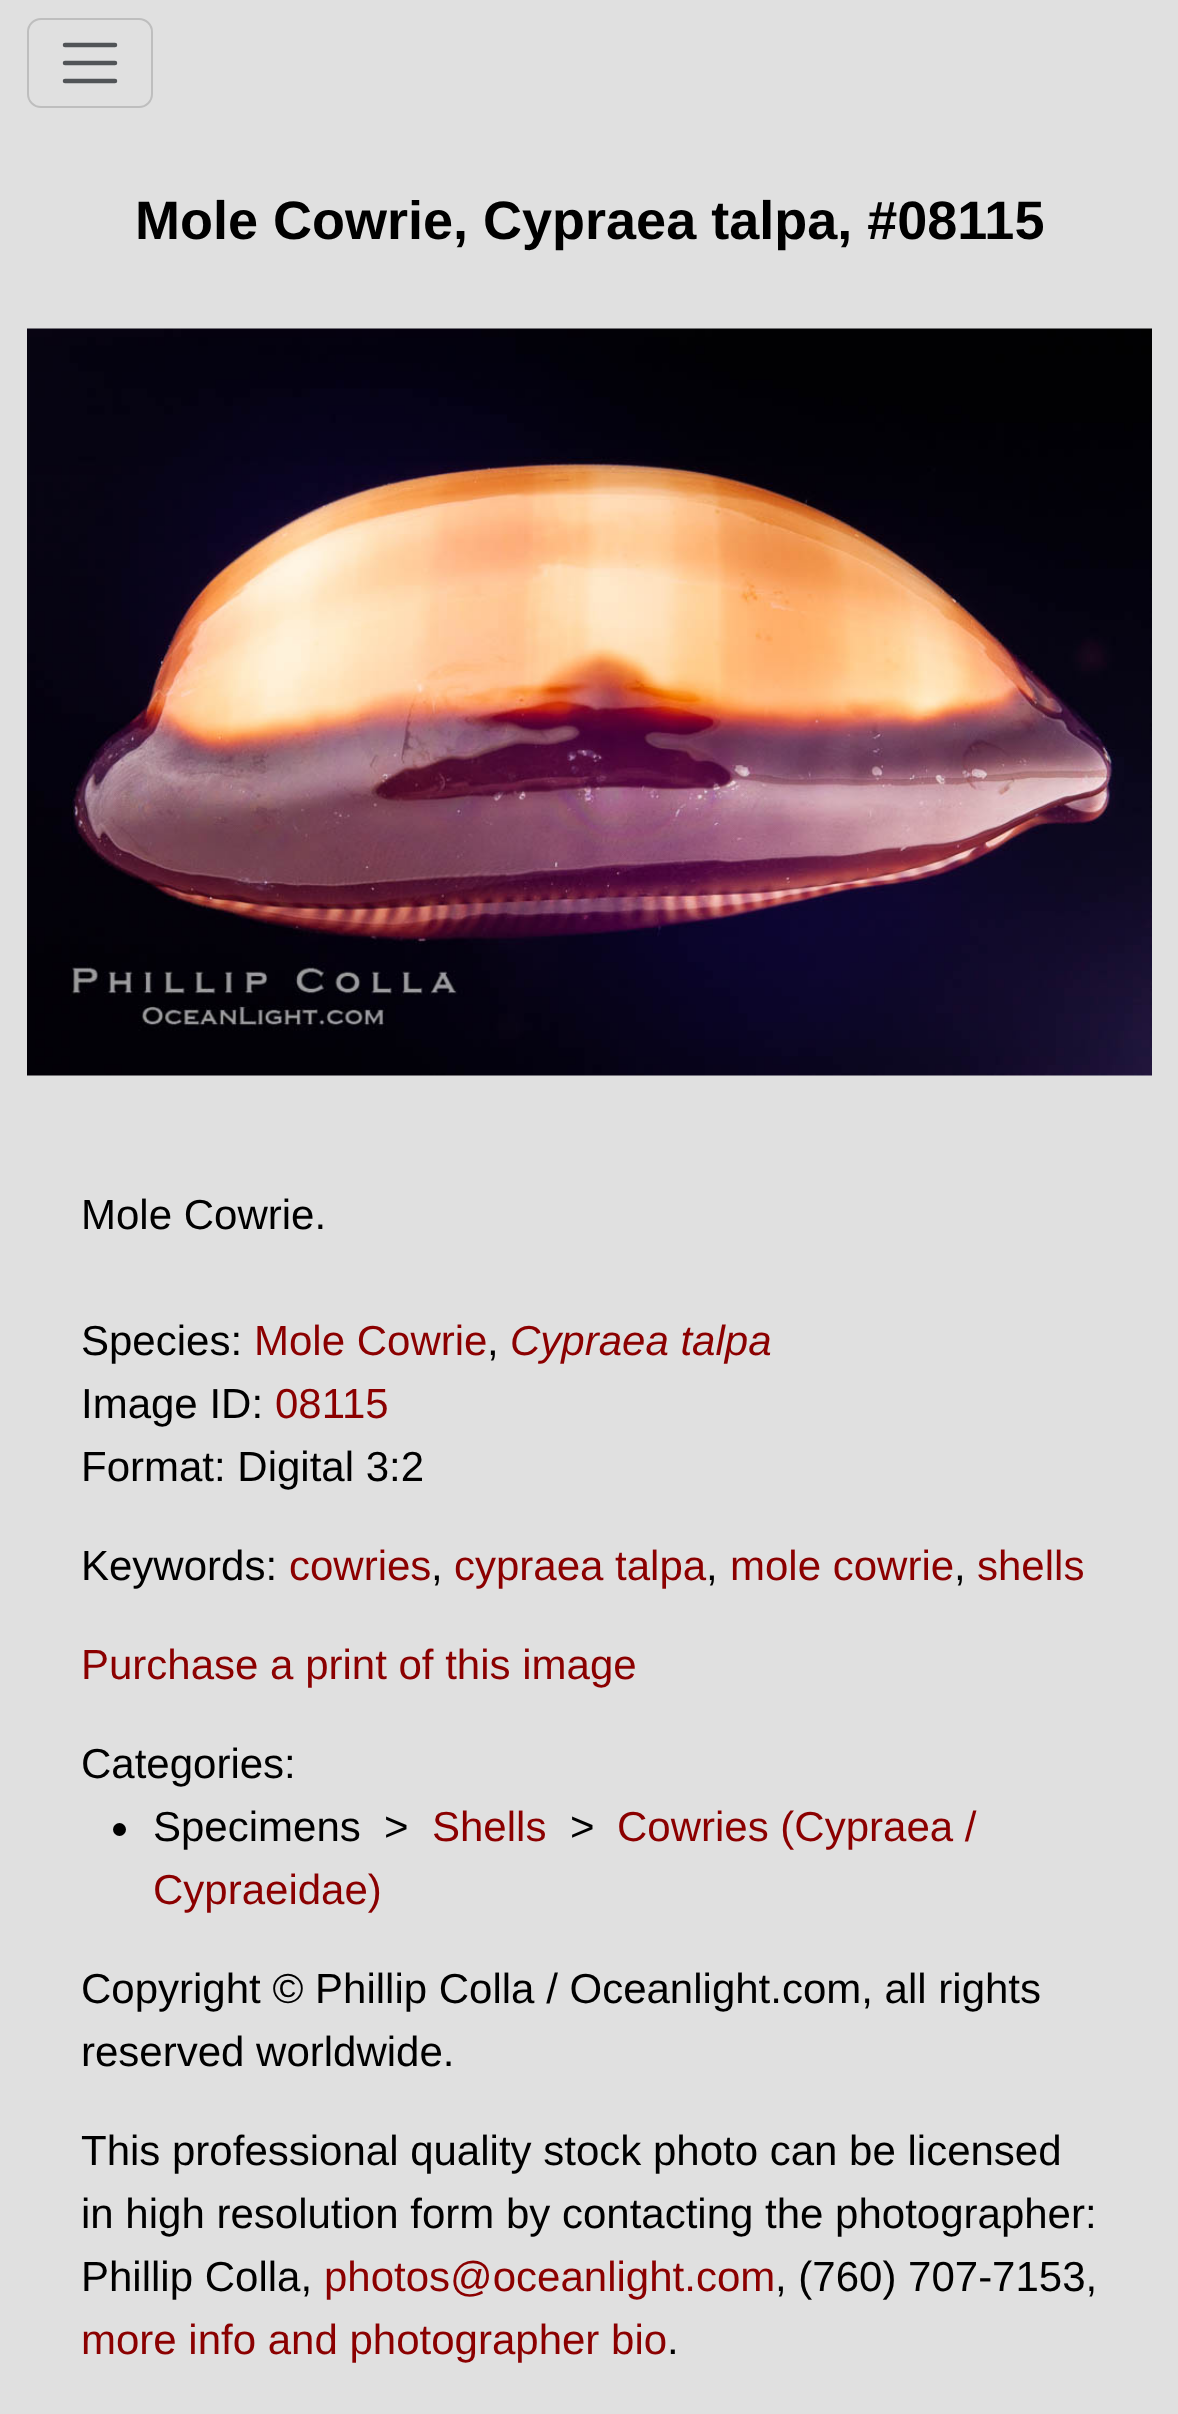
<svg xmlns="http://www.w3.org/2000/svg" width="1178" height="2414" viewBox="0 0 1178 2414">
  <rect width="100%" height="100%" fill="#e0e0e0"/>
  <rect x="28" y="19" width="124" height="88" rx="13" fill="none" stroke="#bebebe" stroke-width="2"/>
  <path d="M65 45H115M65 63H115M65 81H115" fill="none" stroke="#515457" stroke-width="4.5" stroke-linecap="round"/>
  <image x="27" y="328" width="1125" height="748" href="img/1.png"/>
  <circle cx="119.5" cy="1829.5" r="6.5" fill="#000"/>
  <text x="135" y="239" font-family="Liberation Sans" font-size="54" font-weight="bold" fill="#000">Mole Cowrie, Cypraea talpa, #08115</text>
  <g font-family="Liberation Sans" font-size="42" fill="#000">
    <text x="81" y="1229">Mole Cowrie.</text>
    <text x="81" y="1355">Species:</text>
  </g>
  <text x="254" y="1355" font-family="Liberation Sans" font-size="42" fill="#8b0000">Mole Cowrie</text>
  <text x="487" y="1355" font-family="Liberation Sans" font-size="42" fill="#000">,</text>
  <text x="510" y="1355" font-family="Liberation Sans" font-size="42" font-style="italic" fill="#8b0000">Cypraea talpa</text>
  <text x="81" y="1418" font-family="Liberation Sans" font-size="42" fill="#000">Image ID:</text>
  <text x="275" y="1418" font-family="Liberation Sans" font-size="42" fill="#8b0000">08115</text>
  <g font-family="Liberation Sans" font-size="42" fill="#000">
    <text x="81" y="1481">Format: Digital 3:2</text>
    <text x="81" y="1580">Keywords:</text>
  </g>
  <text x="289" y="1580" font-family="Liberation Sans" font-size="42" fill="#8b0000">cowries</text>
  <text x="431" y="1580" font-family="Liberation Sans" font-size="42" fill="#000">,</text>
  <text x="454" y="1580" font-family="Liberation Sans" font-size="42" fill="#8b0000">cypraea talpa</text>
  <text x="706" y="1580" font-family="Liberation Sans" font-size="42" fill="#000">,</text>
  <text x="730" y="1580" font-family="Liberation Sans" font-size="42" fill="#8b0000">mole cowrie</text>
  <text x="954" y="1580" font-family="Liberation Sans" font-size="42" fill="#000">,</text>
  <g font-family="Liberation Sans" font-size="42" fill="#8b0000">
    <text x="977" y="1580">shells</text>
    <text x="81" y="1679">Purchase a print of this image</text>
  </g>
  <g font-family="Liberation Sans" font-size="42" fill="#000">
    <text x="81" y="1778">Categories:</text>
    <text x="153" y="1841" xml:space="preserve">Specimens  &gt;</text>
  </g>
  <text x="432" y="1841" font-family="Liberation Sans" font-size="42" fill="#8b0000">Shells</text>
  <text x="570" y="1841" font-family="Liberation Sans" font-size="42" fill="#000">&gt;</text>
  <g font-family="Liberation Sans" font-size="42" fill="#8b0000">
    <text x="617" y="1841">Cowries (Cypraea /</text>
    <text x="153" y="1904">Cypraeidae)</text>
  </g>
  <g font-family="Liberation Sans" font-size="42" fill="#000">
    <text x="81" y="2003">Copyright © Phillip Colla / Oceanlight.com, all rights</text>
    <text x="81" y="2066">reserved worldwide.</text>
    <text x="81" y="2165">This professional quality stock photo can be licensed</text>
    <text x="81" y="2228">in high resolution form by contacting the photographer:</text>
    <text x="81" y="2291">Phillip Colla,</text>
  </g>
  <text x="324" y="2291" font-family="Liberation Sans" font-size="42" fill="#8b0000">photos@oceanlight.com</text>
  <text x="775" y="2291" font-family="Liberation Sans" font-size="42" fill="#000">, (760) 707-7153,</text>
  <text x="81" y="2354" font-family="Liberation Sans" font-size="42" fill="#8b0000">more info and photographer bio</text>
  <text x="667" y="2354" font-family="Liberation Sans" font-size="42" fill="#000">.</text>
</svg>
